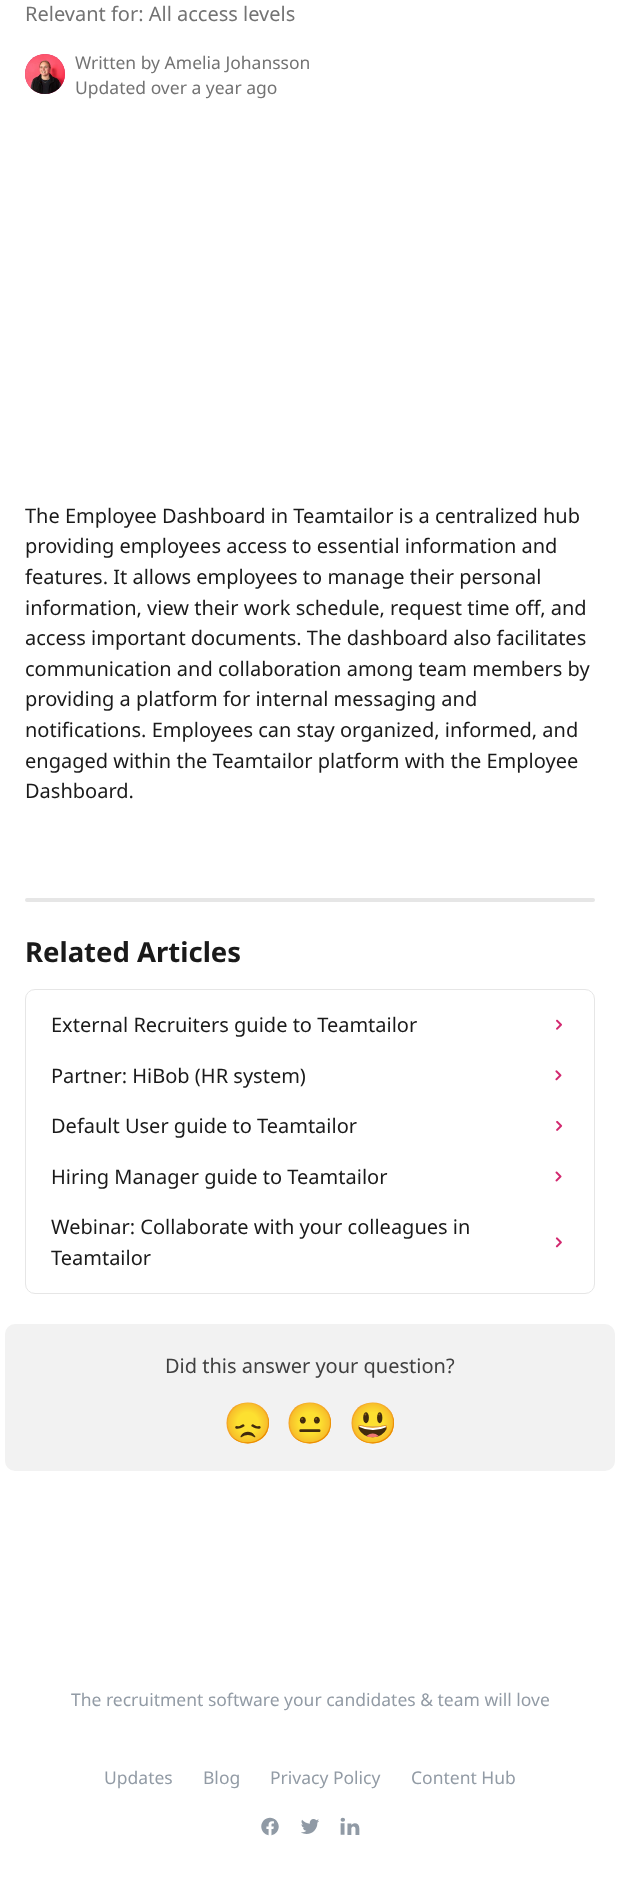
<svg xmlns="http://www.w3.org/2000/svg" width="619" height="1899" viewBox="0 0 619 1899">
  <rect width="100%" height="100%" fill="#fff"/>
  <circle cx="45" cy="74" r="20" fill="#d2286f"/>
  <image x="25" y="54" width="40" height="40" href="img/1.png"/>
  <rect x="25" y="898" width="570" height="4" rx="2" fill="#e6e6e6"/>
  <rect x="25.5" y="989.5" width="569" height="304" rx="9.5" fill="none" stroke="#e6e6e6"/>
  <image x="556" y="1019" width="6" height="11" href="img/2.png"/>
  <image x="555" y="1070" width="7" height="11" href="img/3.png"/>
  <image x="556" y="1120" width="7" height="11" href="img/4.png"/>
  <image x="555" y="1171" width="7" height="11" href="img/5.png"/>
  <image x="555" y="1237" width="7" height="11" href="img/6.png"/>
  <rect x="5" y="1324" width="610" height="147" rx="10" fill="#f2f2f2"/>
  <image x="261" y="1817" width="18" height="19" href="img/7.png"/>
  <image x="301" y="1819" width="18" height="15" href="img/8.png"/>
  <image x="340" y="1817" width="20" height="18" href="img/9.png"/>
  <text x="25" y="21" font-family="Noto Sans" font-size="20" fill="#737373">Relevant for: All access levels</text>
  <g font-family="Noto Sans" font-size="17.5" fill="#737373">
    <text x="75" y="69">Written by Amelia Johansson</text>
    <text x="75" y="94">Updated over a year ago</text>
  </g>
  <g font-family="Noto Sans" font-size="20" fill="#1a1a1a">
    <text x="25" y="523">The Employee Dashboard in Teamtailor is a centralized hub</text>
    <text x="25" y="553">providing employees access to essential information and</text>
    <text x="25" y="584">features. It allows employees to manage their personal</text>
    <text x="25" y="615">information, view their work schedule, request time off, and</text>
    <text x="25" y="645">access important documents. The dashboard also facilitates</text>
    <text x="25" y="676">communication and collaboration among team members by</text>
    <text x="25" y="706">providing a platform for internal messaging and</text>
    <text x="25" y="737">notifications. Employees can stay organized, informed, and</text>
    <text x="25" y="768">engaged within the Teamtailor platform with the Employee</text>
    <text x="25" y="798">Dashboard.</text>
  </g>
  <text x="25" y="962" font-family="Noto Sans" font-size="27.5" font-weight="bold" fill="#1a1a1a">Related Articles</text>
  <g font-family="Noto Sans" font-size="20" fill="#1a1a1a">
    <text x="51" y="1032">External Recruiters guide to Teamtailor</text>
    <text x="51" y="1083">Partner: HiBob (HR system)</text>
    <text x="51" y="1133">Default User guide to Teamtailor</text>
    <text x="51" y="1184">Hiring Manager guide to Teamtailor</text>
    <text x="51" y="1234">Webinar: Collaborate with your colleagues in</text>
    <text x="51" y="1265">Teamtailor</text>
  </g>
  <text x="165" y="1373" font-family="Noto Sans" font-size="20" fill="#404040">Did this answer your question?</text>
  <g font-family="Noto Color Emoji" font-size="40" fill="#404040">
    <text x="223" y="1437">😞</text>
    <text x="285" y="1437">😐</text>
    <text x="348" y="1437">😃</text>
  </g>
  <g font-family="Noto Sans" font-size="17.5" fill="#929ba5">
    <text x="71" y="1706">The recruitment software your candidates &amp; team will love</text>
    <text x="104" y="1784">Updates</text>
    <text x="203" y="1784">Blog</text>
    <text x="270" y="1784">Privacy Policy</text>
    <text x="411" y="1784">Content Hub</text>
  </g>
</svg>
